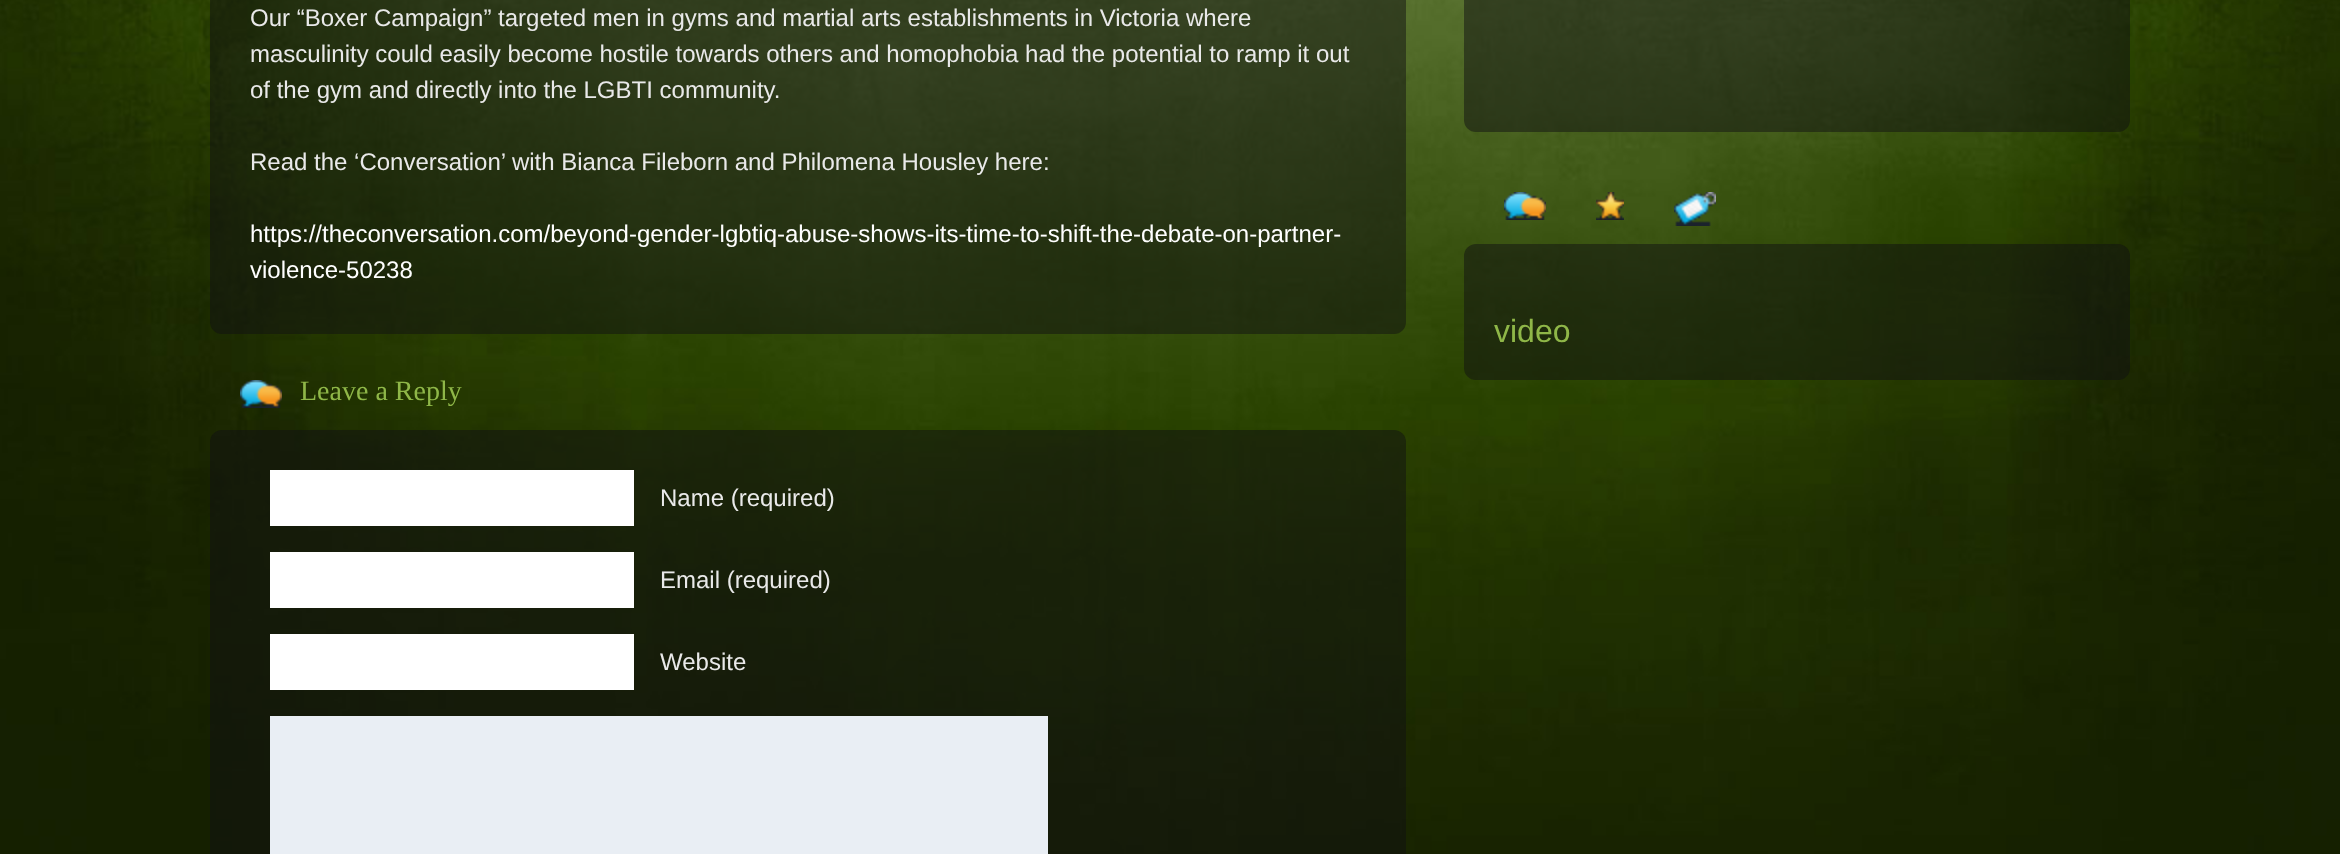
<svg xmlns="http://www.w3.org/2000/svg" width="2340" height="854" viewBox="0 0 2340 854">
  <rect width="100%" height="100%" fill="#fff"/>
  <image x="0" y="0" width="2340" height="854" href="img/1.png"/>
  <image x="210" y="0" width="1196" height="334" href="img/2.png"/>
  <image x="240" y="380" width="42" height="28" href="img/3.png"/>
  <image x="210" y="430" width="1196" height="424" href="img/4.png"/>
  <path d="M270 470h364v56H270z" fill="#fff"/>
  <path d="M270 552h364v56H270z" fill="#fff"/>
  <path d="M270 634h364v56H270z" fill="#fff"/>
  <path d="M270 716h778v138H270z" fill="#e9eef4"/>
  <image x="1464" y="0" width="666" height="132" href="img/5.png"/>
  <image x="1504" y="192" width="42" height="28" href="img/6.png"/>
  <image x="1596" y="192" width="28" height="28" href="img/7.png"/>
  <image x="1674" y="192" width="42" height="34" href="img/8.png"/>
  <image x="1464" y="244" width="666" height="136" href="img/9.png"/>
  <g font-family="Liberation Sans" font-size="24" fill="#e9e9e9">
    <text x="250" y="26">Our “Boxer Campaign” targeted men in gyms and martial arts establishments in Victoria where</text>
    <text x="250" y="62">masculinity could easily become hostile towards others and homophobia had the potential to ramp it out</text>
    <text x="250" y="98">of the gym and directly into the LGBTI community.</text>
    <text x="250" y="170">Read the ‘Conversation’ with Bianca Fileborn and Philomena Housley here:</text>
  </g>
  <g font-family="Liberation Sans" font-size="24" fill="#fff">
    <text x="250" y="242">https://theconversation.com/beyond-gender-lgbtiq-abuse-shows-its-time-to-shift-the-debate-on-partner-</text>
    <text x="250" y="278">violence-50238</text>
  </g>
  <text x="300" y="400" font-family="Liberation Serif" font-size="28" fill="#8fb748">Leave a Reply</text>
  <g font-family="Liberation Sans" font-size="24" fill="#e9e9e9">
    <text x="660" y="506">Name (required)</text>
    <text x="660" y="588">Email (required)</text>
    <text x="660" y="670">Website</text>
  </g>
  <text x="1494" y="342" font-family="Liberation Sans" font-size="32" fill="#8fb748">video</text>
</svg>
